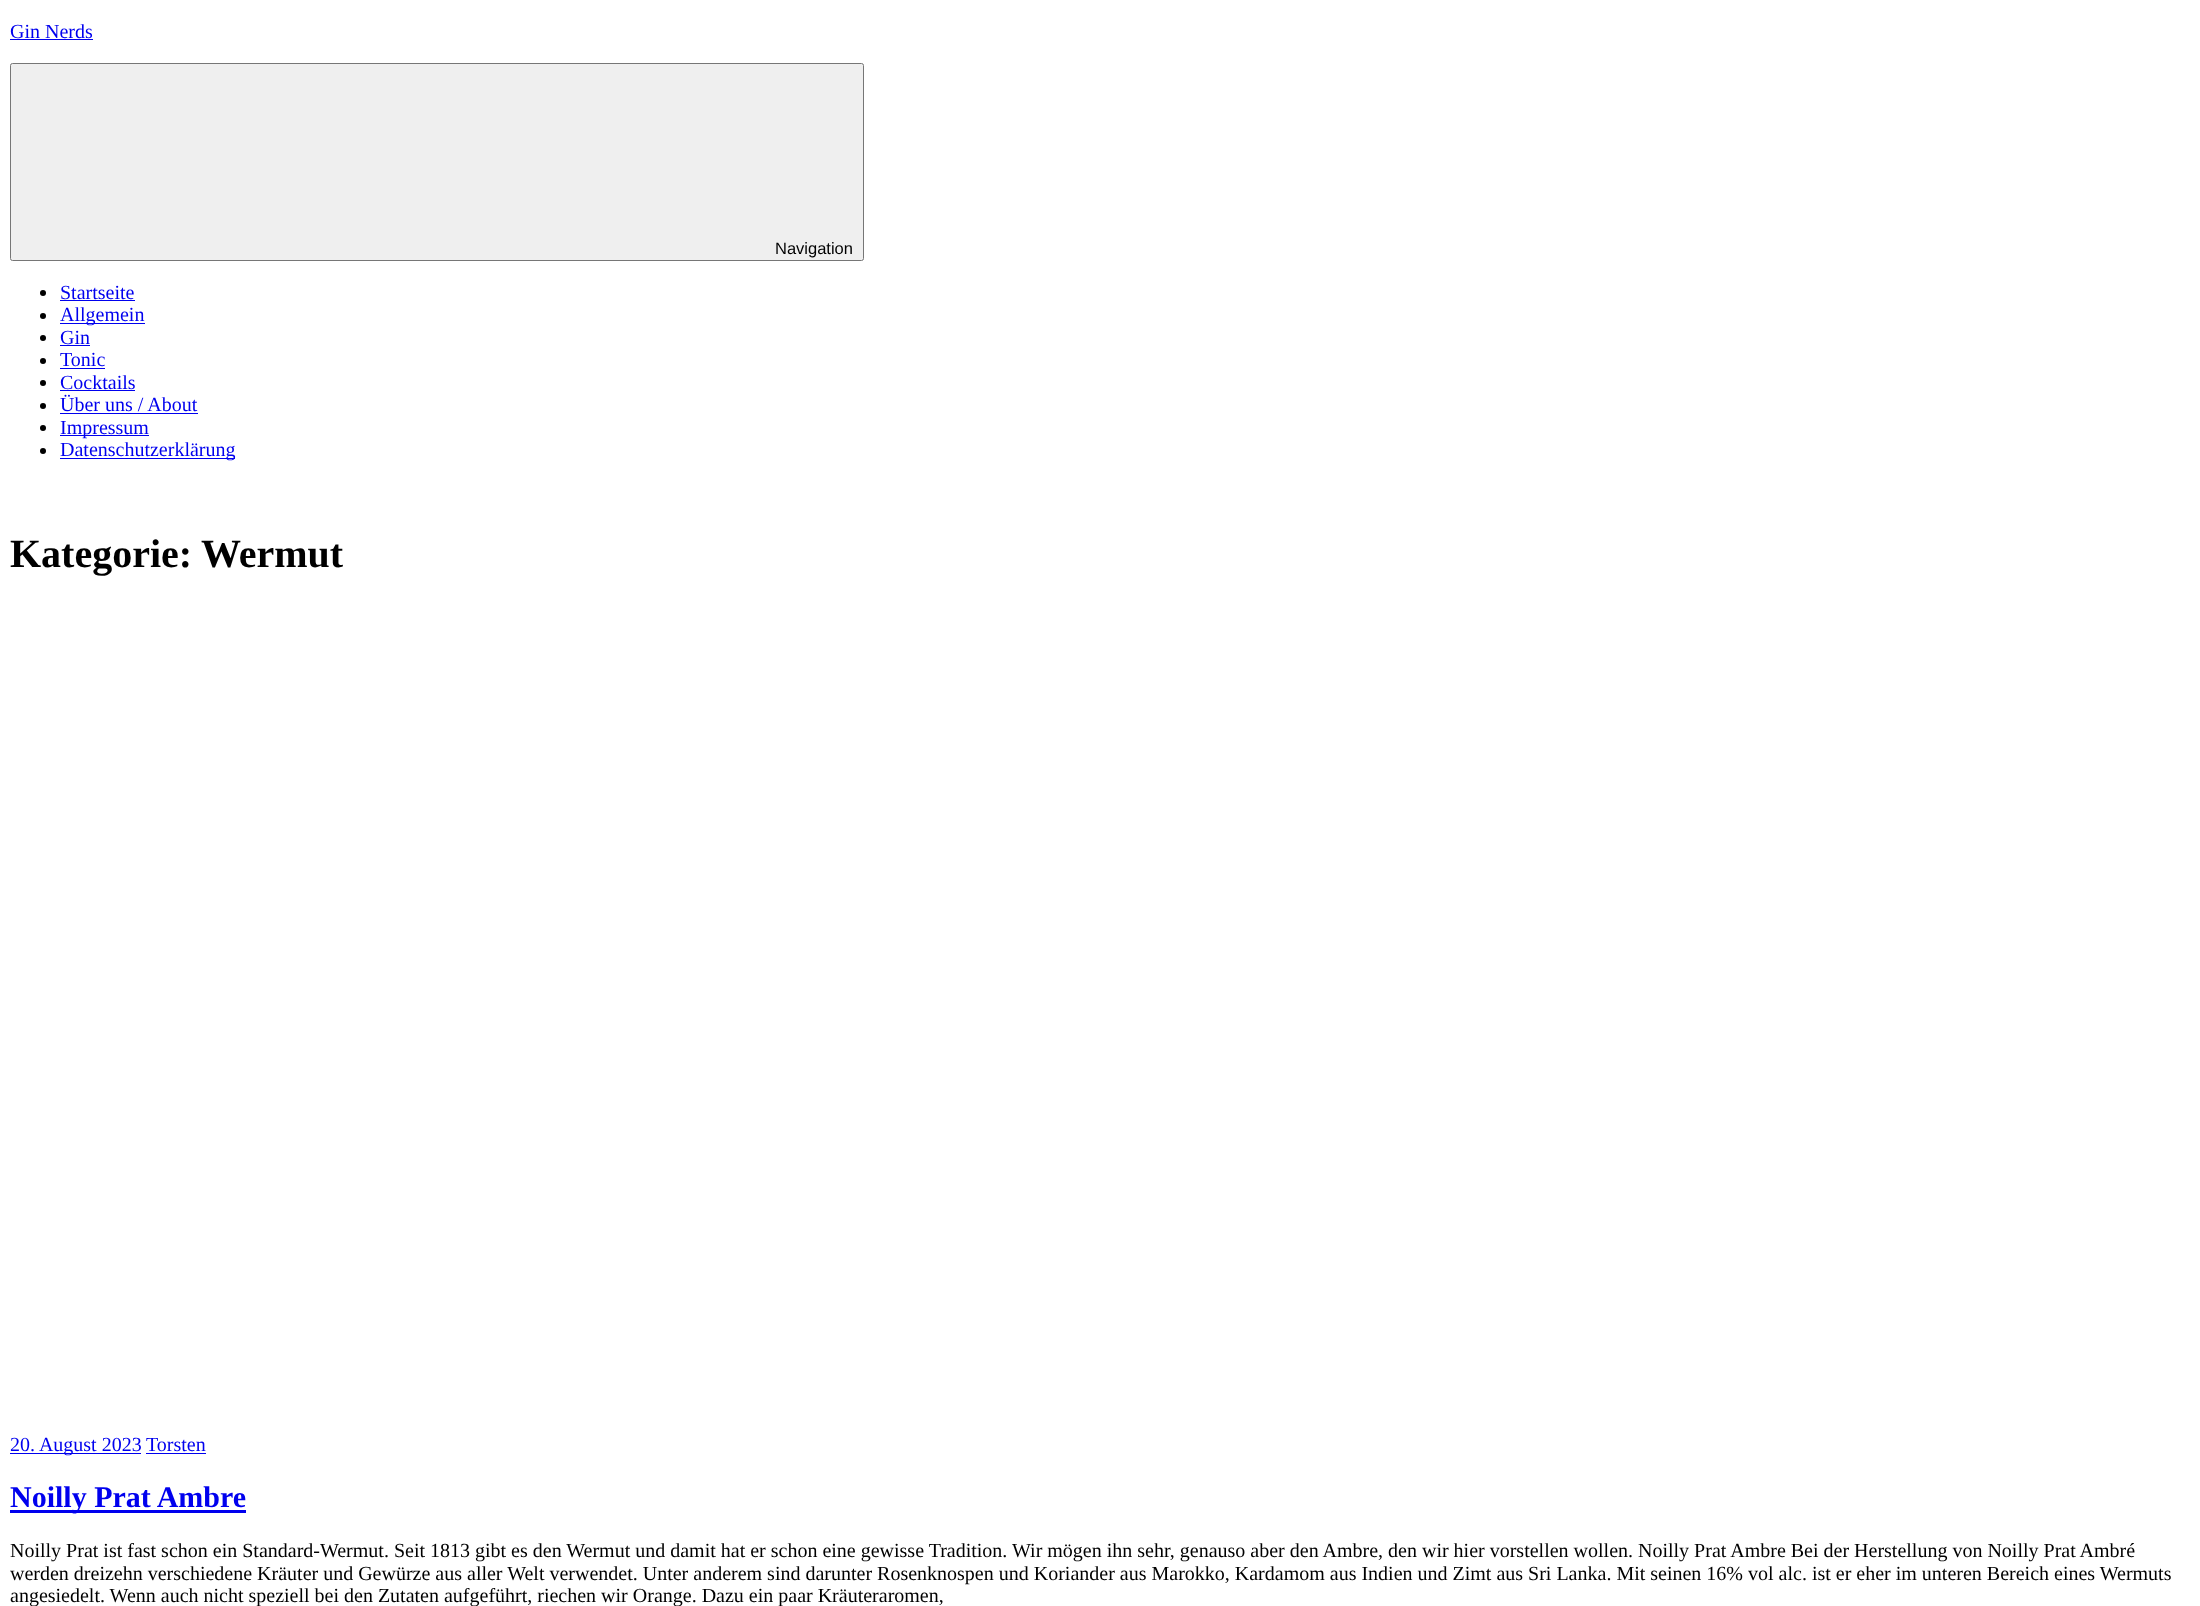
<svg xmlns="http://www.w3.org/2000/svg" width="2200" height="1606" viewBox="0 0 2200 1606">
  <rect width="100%" height="100%" fill="#fff"/>
  <path d="M10 39h83v1H10z" fill="#00e"/>
  <rect x="10.5" y="63.5" width="853" height="197" rx="2" fill="#efefef" stroke="#767676"/>
  <circle cx="43" cy="293" r="3" fill="#000"/>
  <path d="M60 300h75v1H60z" fill="#00e"/>
  <circle cx="43" cy="316" r="3" fill="#000"/>
  <path d="M60 323h85v1H60z" fill="#00e"/>
  <circle cx="43" cy="338" r="3" fill="#000"/>
  <path d="M60 345h30v1H60z" fill="#00e"/>
  <circle cx="43" cy="361" r="3" fill="#000"/>
  <path d="M60 368h45v1H60z" fill="#00e"/>
  <circle cx="43" cy="383" r="3" fill="#000"/>
  <path d="M60 390h75v1H60z" fill="#00e"/>
  <circle cx="43" cy="406" r="3" fill="#000"/>
  <path d="M60 413h138v1H60z" fill="#00e"/>
  <circle cx="43" cy="428" r="3" fill="#000"/>
  <path d="M60 435h89v1H60z" fill="#00e"/>
  <circle cx="43" cy="451" r="3" fill="#000"/>
  <path d="M60 458h175v1H60z" fill="#00e"/>
  <path d="M10 1453h131v1H10z" fill="#00e"/>
  <path d="M146 1453h60v1H146z" fill="#00e"/>
  <path d="M10 1510h236v3H10z" fill="#00e"/>
  <text x="10" y="38" font-family="Liberation Serif" font-size="20" fill="#00e">Gin Nerds</text>
  <text x="775" y="254" font-family="Liberation Sans" font-size="16.5" fill="#000">Navigation</text>
  <g font-family="Liberation Serif" font-size="20" fill="#00e">
    <text x="60" y="299">Startseite</text>
    <text x="60" y="321">Allgemein</text>
    <text x="60" y="344">Gin</text>
    <text x="60" y="366">Tonic</text>
    <text x="60" y="389">Cocktails</text>
    <text x="60" y="411">Über uns / About</text>
    <text x="60" y="434">Impressum</text>
    <text x="60" y="456">Datenschutzerklärung</text>
  </g>
  <g font-family="Liberation Serif" font-size="40" font-weight="bold" fill="#000">
    <text x="10" y="567">Kategorie:</text>
    <text x="201" y="567">Wermut</text>
  </g>
  <g font-family="Liberation Serif" font-size="20" fill="#00e">
    <text x="10" y="1451">20. August 2023</text>
    <text x="146" y="1451">Torsten</text>
  </g>
  <text x="10" y="1507" font-family="Liberation Serif" font-size="30" font-weight="bold" fill="#00e">Noilly Prat Ambre</text>
  <g font-family="Liberation Serif" font-size="20" fill="#000">
    <text x="10" y="1557">Noilly Prat ist fast schon ein Standard-Wermut. Seit 1813 gibt es den Wermut und damit hat er schon eine gewisse Tradition. Wir mögen ihn sehr, genauso aber den Ambre, den wir hier vorstellen wollen. Noilly Prat Ambre Bei der Herstellung von Noilly Prat Ambré</text>
    <text x="10" y="1580">werden dreizehn verschiedene Kräuter und Gewürze aus aller Welt verwendet. Unter anderem sind darunter Rosenknospen und Koriander aus Marokko, Kardamom aus Indien und Zimt aus Sri Lanka. Mit seinen 16% vol alc. ist er eher im unteren Bereich eines Wermuts</text>
    <text x="10" y="1602">angesiedelt. Wenn auch nicht speziell bei den Zutaten aufgeführt, riechen wir Orange. Dazu ein paar Kräuteraromen,</text>
  </g>
</svg>
